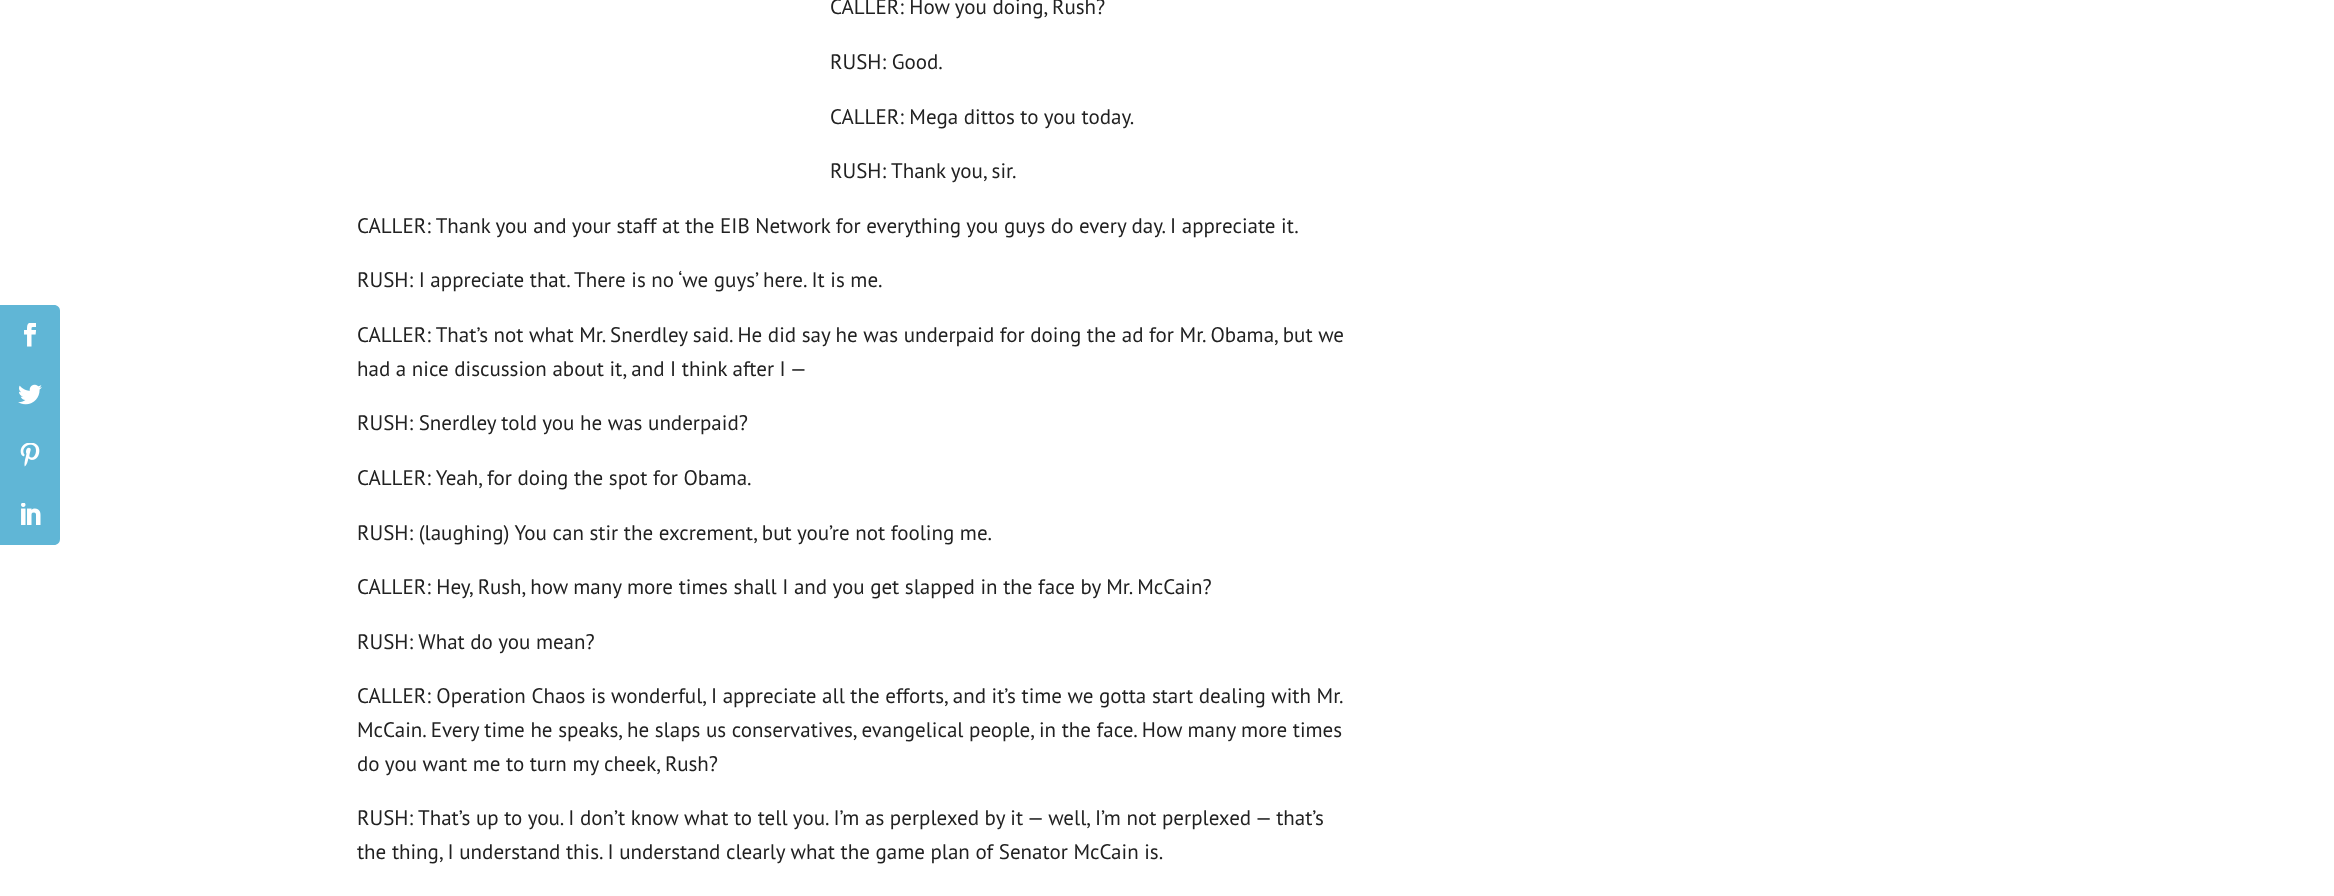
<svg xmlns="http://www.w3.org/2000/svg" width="2334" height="896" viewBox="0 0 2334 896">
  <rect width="100%" height="100%" fill="#fff"/>
  <path d="M0 305H54C57.5 305 60 307.5 60 311V365H0Z" fill="#60b6d6"/>
  <image x="24" y="323" width="12" height="24" href="img/1.png"/>
  <path d="M0 365h60v120H0z" fill="#60b6d6"/>
  <image x="18" y="384" width="24" height="21" href="img/2.png"/>
  <image x="20" y="443" width="20" height="24" href="img/3.png"/>
  <path d="M0 485H60V539C60 542.5 57.5 545 54 545H0Z" fill="#60b6d6"/>
  <image x="21" y="503" width="20" height="22" href="img/4.png"/>
  <g font-family="PT Sans" font-size="21" fill="#212121">
    <text x="830" y="14">CALLER: How you doing, Rush?</text>
    <text x="830" y="69">RUSH: Good.</text>
    <text x="830" y="124">CALLER: Mega dittos to you today.</text>
    <text x="830" y="178">RUSH: Thank you, sir.</text>
    <text x="357" y="233">CALLER: Thank you and your staff at the EIB Network for everything you guys do every day. I appreciate it.</text>
    <text x="357" y="287">RUSH: I appreciate that. There is no ‘we guys’ here. It is me.</text>
    <text x="357" y="342">CALLER: That’s not what Mr. Snerdley said. He did say he was underpaid for doing the ad for Mr. Obama, but we</text>
    <text x="357" y="376">had a nice discussion about it, and I think after I —</text>
    <text x="357" y="430">RUSH: Snerdley told you he was underpaid?</text>
    <text x="357" y="485">CALLER: Yeah, for doing the spot for Obama.</text>
    <text x="357" y="540">RUSH: (laughing) You can stir the excrement, but you’re not fooling me.</text>
    <text x="357" y="594">CALLER: Hey, Rush, how many more times shall I and you get slapped in the face by Mr. McCain?</text>
    <text x="357" y="649">RUSH: What do you mean?</text>
    <text x="357" y="703">CALLER: Operation Chaos is wonderful, I appreciate all the efforts, and it’s time we gotta start dealing with Mr.</text>
    <text x="357" y="737">McCain. Every time he speaks, he slaps us conservatives, evangelical people, in the face. How many more times</text>
    <text x="357" y="771">do you want me to turn my cheek, Rush?</text>
    <text x="357" y="825">RUSH: That’s up to you. I don’t know what to tell you. I’m as perplexed by it — well, I’m not perplexed — that’s</text>
    <text x="357" y="859">the thing, I understand this. I understand clearly what the game plan of Senator McCain is.</text>
  </g>
</svg>
